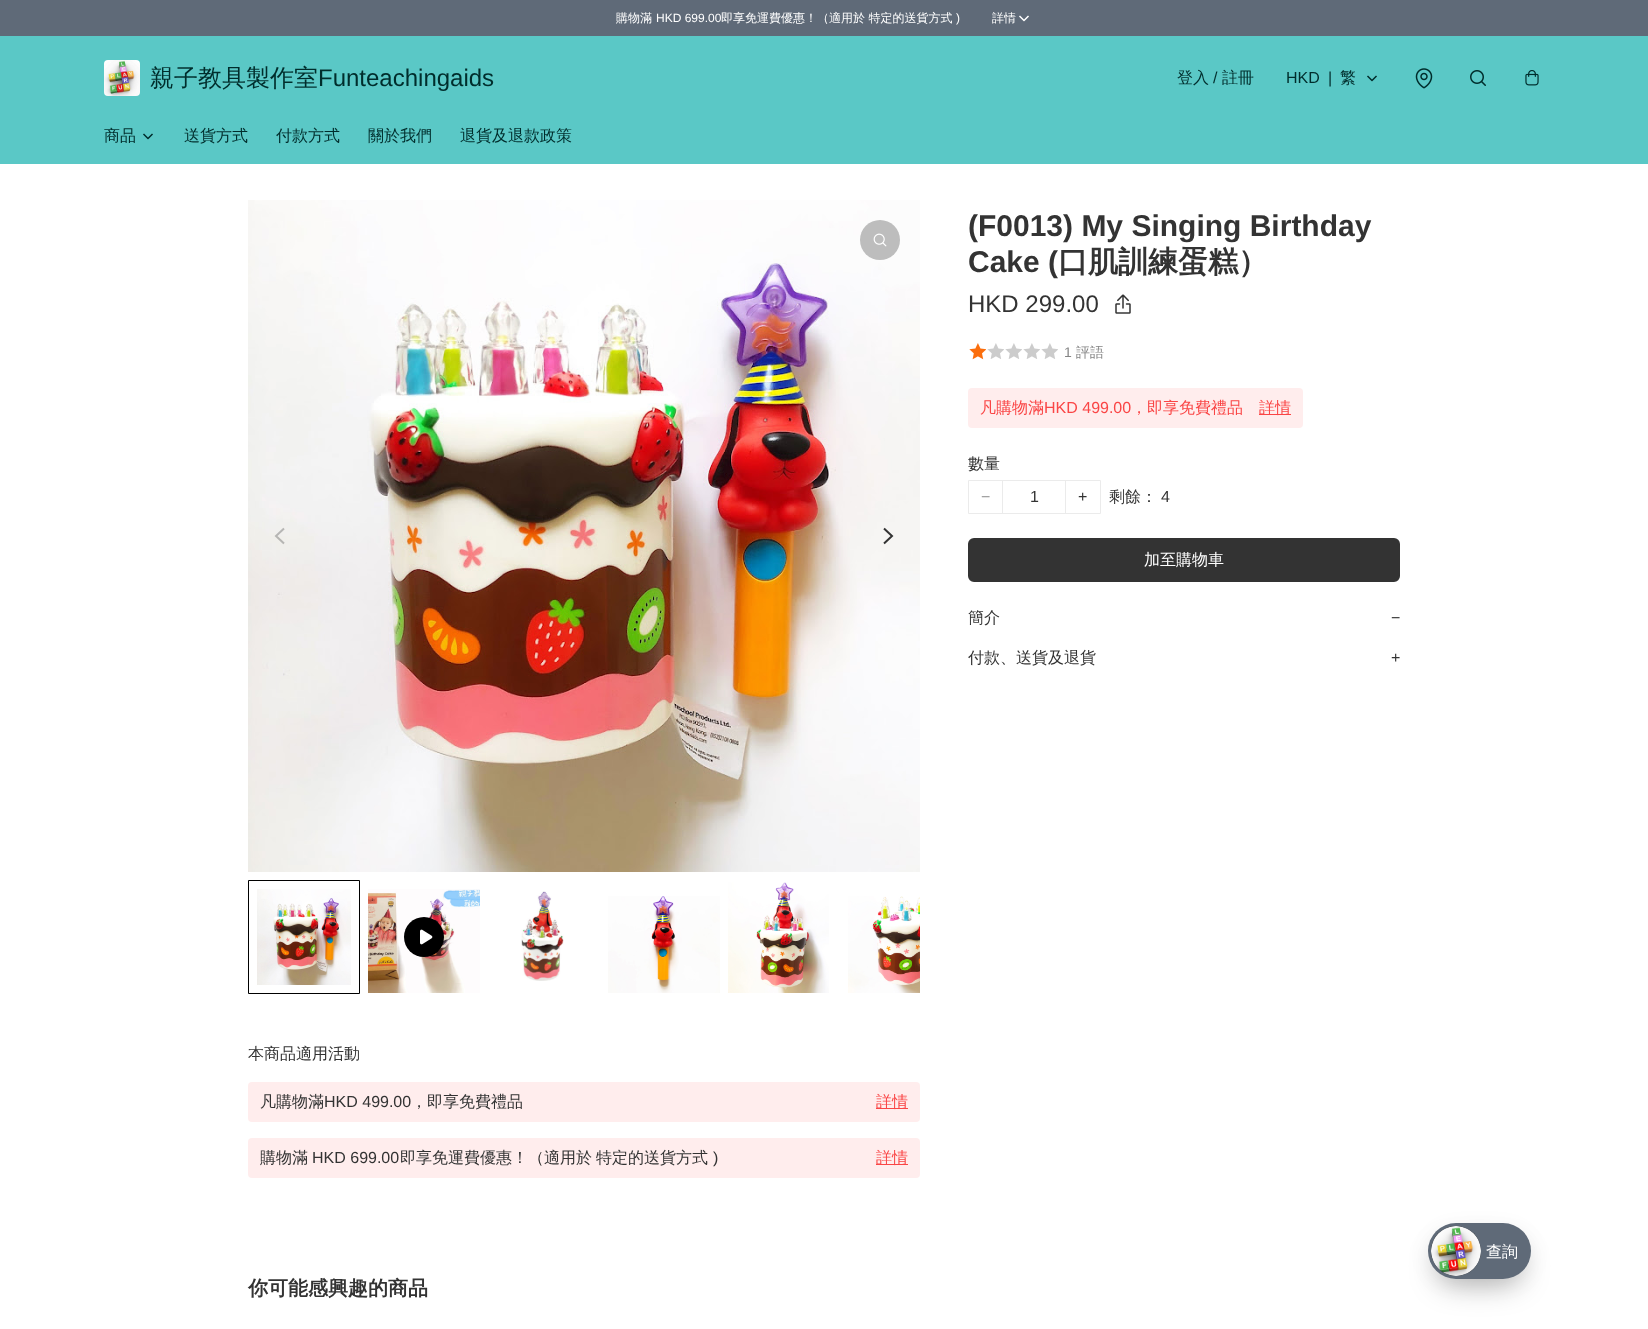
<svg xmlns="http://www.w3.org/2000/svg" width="1648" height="1329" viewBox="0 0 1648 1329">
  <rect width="100%" height="100%" fill="#fff"/>
  <path d="M0 0h1648v36H0z" fill="#5f6a78"/>
  <path d="M1020 16.5L1024 20.5L1028 16.5" fill="none" stroke="#fff" stroke-width="1.5" stroke-linecap="square" stroke-linejoin="round"/>
  <path d="M0 36h1648v128H0z" fill="#5ac8c6"/>
  <image x="104" y="60" width="36" height="36" href="img/1.png"/>
  <path d="M1368 76.5L1372 80.5L1376 76.5" fill="none" stroke="#002d2c" stroke-width="1.5" stroke-linecap="square" stroke-linejoin="round"/>
  <image x="1415" y="68" width="18" height="21" href="img/2.png"/>
  <image x="1470" y="70" width="16" height="16" href="img/3.png"/>
  <image x="1525" y="70" width="14" height="16" href="img/4.png"/>
  <path d="M144 134.5L148 138.5L152 134.5" fill="none" stroke="#002d2c" stroke-width="1.5" stroke-linecap="square" stroke-linejoin="round"/>
  <image x="1115" y="294" width="16" height="20" href="img/5.png"/>
  <image x="969" y="343" width="17" height="17" href="img/6.png"/>
  <image x="987" y="343" width="17" height="16" href="img/7.png"/>
  <image x="1005" y="343" width="17" height="16" href="img/7.png"/>
  <image x="1023" y="343" width="17" height="16" href="img/7.png"/>
  <image x="1041" y="343" width="17" height="16" href="img/7.png"/>
  <rect x="968" y="388" width="335" height="40" rx="4" fill="#ffeded"/>
  <path d="M1259 414h32v1H1259z" fill="#fa4646"/>
  <path d="M968.5 480.5h132v33H968.5z" fill="none" stroke="#ebebeb"/>
  <path d="M1065 481h1v32H1065z" fill="#ebebeb"/>
  <path d="M1002 481h1v32H1002z" fill="#ebebeb"/>
  <rect x="969" y="539" width="430" height="42" rx="5" fill="#333" stroke="#333" stroke-width="2"/>
  <image x="248" y="200" width="672" height="672" href="img/8.png"/>
  <circle cx="880" cy="240" r="20" fill="#bdbdbd"/>
  <image x="873" y="233" width="14" height="14" href="img/9.png"/>
  <path d="M284 528.5L276 536L284 543.5" fill="none" stroke="#3333334d" stroke-width="2"/>
  <path d="M884 528.5L892 536L884 543.5" fill="none" stroke="#333" stroke-width="2"/>
  <path d="M248.5 880.5h111v113H248.5z" fill="none" stroke="#000"/>
  <image x="257" y="889" width="94" height="96" href="img/10.png"/>
  <image x="368" y="889" width="112" height="104" href="img/11.png"/>
  <circle cx="424" cy="937" r="20" fill="#000"/>
  <image x="420" y="929" width="13" height="16" href="img/12.png"/>
  <image x="521" y="891" width="43" height="90" href="img/13.png"/>
  <image x="608" y="896" width="112" height="97" href="img/14.png"/>
  <image x="728" y="882" width="101" height="111" href="img/15.png"/>
  <image x="848" y="896" width="72" height="97" href="img/16.png"/>
  <rect x="248" y="1082" width="672" height="40" rx="4" fill="#ffeded"/>
  <path d="M876 1108h32v1H876z" fill="#fa4646"/>
  <rect x="248" y="1138" width="672" height="40" rx="4" fill="#ffeded"/>
  <path d="M876 1164h32v1H876z" fill="#fa4646"/>
  <rect x="1438" y="1248" width="83" height="36" rx="18" fill="#0000004d" filter="blur(15px)"/>
  <rect x="1428" y="1228" width="103" height="56" rx="28" fill="#0000000d" filter="blur(10px)"/>
  <rect x="1428" y="1223" width="103" height="56" rx="28" fill="#5f6a78"/>
  <image x="1431" y="1226" width="50" height="50" href="img/17.png"/>
  <text x="616" y="22" font-family="WenQuanYi Zen Hei" font-size="12" font-weight="500" fill="#fff">購物滿</text>
  <text x="656" y="22" font-family="Liberation Sans" font-size="12" fill="#fff">HKD 699.00</text>
  <text x="721" y="22" font-family="WenQuanYi Zen Hei" font-size="12" font-weight="500" fill="#fff">即享免運費優惠！（適用於 特定的送貨方式</text>
  <text x="956" y="22" font-family="Liberation Sans" font-size="12" fill="#fff">)</text>
  <text x="992" y="22" font-family="WenQuanYi Zen Hei" font-size="12" font-weight="500" fill="#fff">詳情</text>
  <text x="150" y="86" font-family="WenQuanYi Zen Hei" font-size="24" font-weight="500" fill="#002d2c">親子教具製作室</text>
  <text x="318" y="86" font-family="Liberation Sans" font-size="24" fill="#002d2c">Funteachingaids</text>
  <text x="1177" y="83" font-family="WenQuanYi Zen Hei" font-size="16" font-weight="500" fill="#002d2c">登入</text>
  <text x="1213" y="83" font-family="Liberation Sans" font-size="16" fill="#002d2c">/</text>
  <text x="1222" y="83" font-family="WenQuanYi Zen Hei" font-size="16" font-weight="500" fill="#002d2c">註冊</text>
  <g font-family="Liberation Sans" font-size="16" fill="#002d2c">
    <text x="1286" y="83">HKD</text>
    <text x="1328" y="83">|</text>
  </g>
  <g font-family="WenQuanYi Zen Hei" font-size="16" font-weight="500" fill="#002d2c">
    <text x="1340" y="83">繁</text>
    <text x="104" y="141">商品</text>
    <text x="184" y="141">送貨方式</text>
    <text x="276" y="141">付款方式</text>
    <text x="368" y="141">關於我們</text>
    <text x="460" y="141">退貨及退款政策</text>
  </g>
  <g font-family="Liberation Sans" font-size="30" font-weight="bold" fill="#333">
    <text x="968" y="236">(F0013) My Singing Birthday</text>
    <text x="968" y="272">Cake (</text>
  </g>
  <text x="1058" y="272" font-family="WenQuanYi Zen Hei" font-size="30" font-weight="bold" fill="#333">口肌訓練蛋糕）</text>
  <text x="968" y="312" font-family="Liberation Sans" font-size="24" fill="#333">HKD 299.00</text>
  <text x="1064" y="357" font-family="Liberation Sans" font-size="14" fill="#858585">1</text>
  <text x="1076" y="357" font-family="WenQuanYi Zen Hei" font-size="14" font-weight="500" fill="#858585">評語</text>
  <text x="980" y="413" font-family="WenQuanYi Zen Hei" font-size="16" font-weight="500" fill="#fa4646">凡購物滿</text>
  <text x="1044" y="413" font-family="Liberation Sans" font-size="16" fill="#fa4646">HKD 499.00</text>
  <g font-family="WenQuanYi Zen Hei" font-size="16" font-weight="500" fill="#fa4646">
    <text x="1131" y="413">，即享免費禮品</text>
    <text x="1259" y="413">詳情</text>
  </g>
  <text x="968" y="469" font-family="WenQuanYi Zen Hei" font-size="16" font-weight="500" fill="#333">數量</text>
  <text x="981" y="502" font-family="Liberation Sans" font-size="16" fill="#999">−</text>
  <g font-family="Liberation Sans" font-size="16" fill="#333">
    <text x="1030" y="502">1</text>
    <text x="1078" y="502">+</text>
  </g>
  <text x="1109" y="502" font-family="WenQuanYi Zen Hei" font-size="16" font-weight="500" fill="#333">剩餘：</text>
  <text x="1161" y="502" font-family="Liberation Sans" font-size="16" fill="#333">4</text>
  <text x="1144" y="565" font-family="WenQuanYi Zen Hei" font-size="16" font-weight="500" fill="#fff">加至購物車</text>
  <text x="968" y="623" font-family="WenQuanYi Zen Hei" font-size="16" font-weight="500" fill="#333">簡介</text>
  <text x="1391" y="623" font-family="Liberation Sans" font-size="16" fill="#333">−</text>
  <text x="968" y="663" font-family="WenQuanYi Zen Hei" font-size="16" font-weight="500" fill="#333">付款、送貨及退貨</text>
  <text x="1391" y="663" font-family="Liberation Sans" font-size="16" fill="#333">+</text>
  <g font-family="WenQuanYi Zen Hei" font-size="16" font-weight="500" fill="#333">
    <text x="248" y="1059">本商品適用活動</text>
    <text x="260" y="1107">凡購物滿</text>
  </g>
  <text x="324" y="1107" font-family="Liberation Sans" font-size="16" fill="#333">HKD 499.00</text>
  <text x="411" y="1107" font-family="WenQuanYi Zen Hei" font-size="16" font-weight="500" fill="#333">，即享免費禮品</text>
  <text x="876" y="1107" font-family="WenQuanYi Zen Hei" font-size="16" font-weight="500" fill="#fa4646">詳情</text>
  <text x="260" y="1163" font-family="WenQuanYi Zen Hei" font-size="16" font-weight="500" fill="#333">購物滿</text>
  <text x="312" y="1163" font-family="Liberation Sans" font-size="16" fill="#333">HKD 699.00</text>
  <g font-family="WenQuanYi Zen Hei" font-size="16" font-weight="500" fill="#333">
    <text x="400" y="1163">即享免運費優惠！（適用於</text>
    <text x="596" y="1163">特定的送貨方式</text>
  </g>
  <text x="713" y="1163" font-family="Liberation Sans" font-size="16" fill="#333">)</text>
  <text x="876" y="1163" font-family="WenQuanYi Zen Hei" font-size="16" font-weight="500" fill="#fa4646">詳情</text>
  <text x="248" y="1295" font-family="WenQuanYi Zen Hei" font-size="20" font-weight="bold" fill="#333">你可能感興趣的商品</text>
  <text x="1486" y="1257" font-family="WenQuanYi Zen Hei" font-size="16" font-weight="500" fill="#fff">查詢</text>
</svg>
